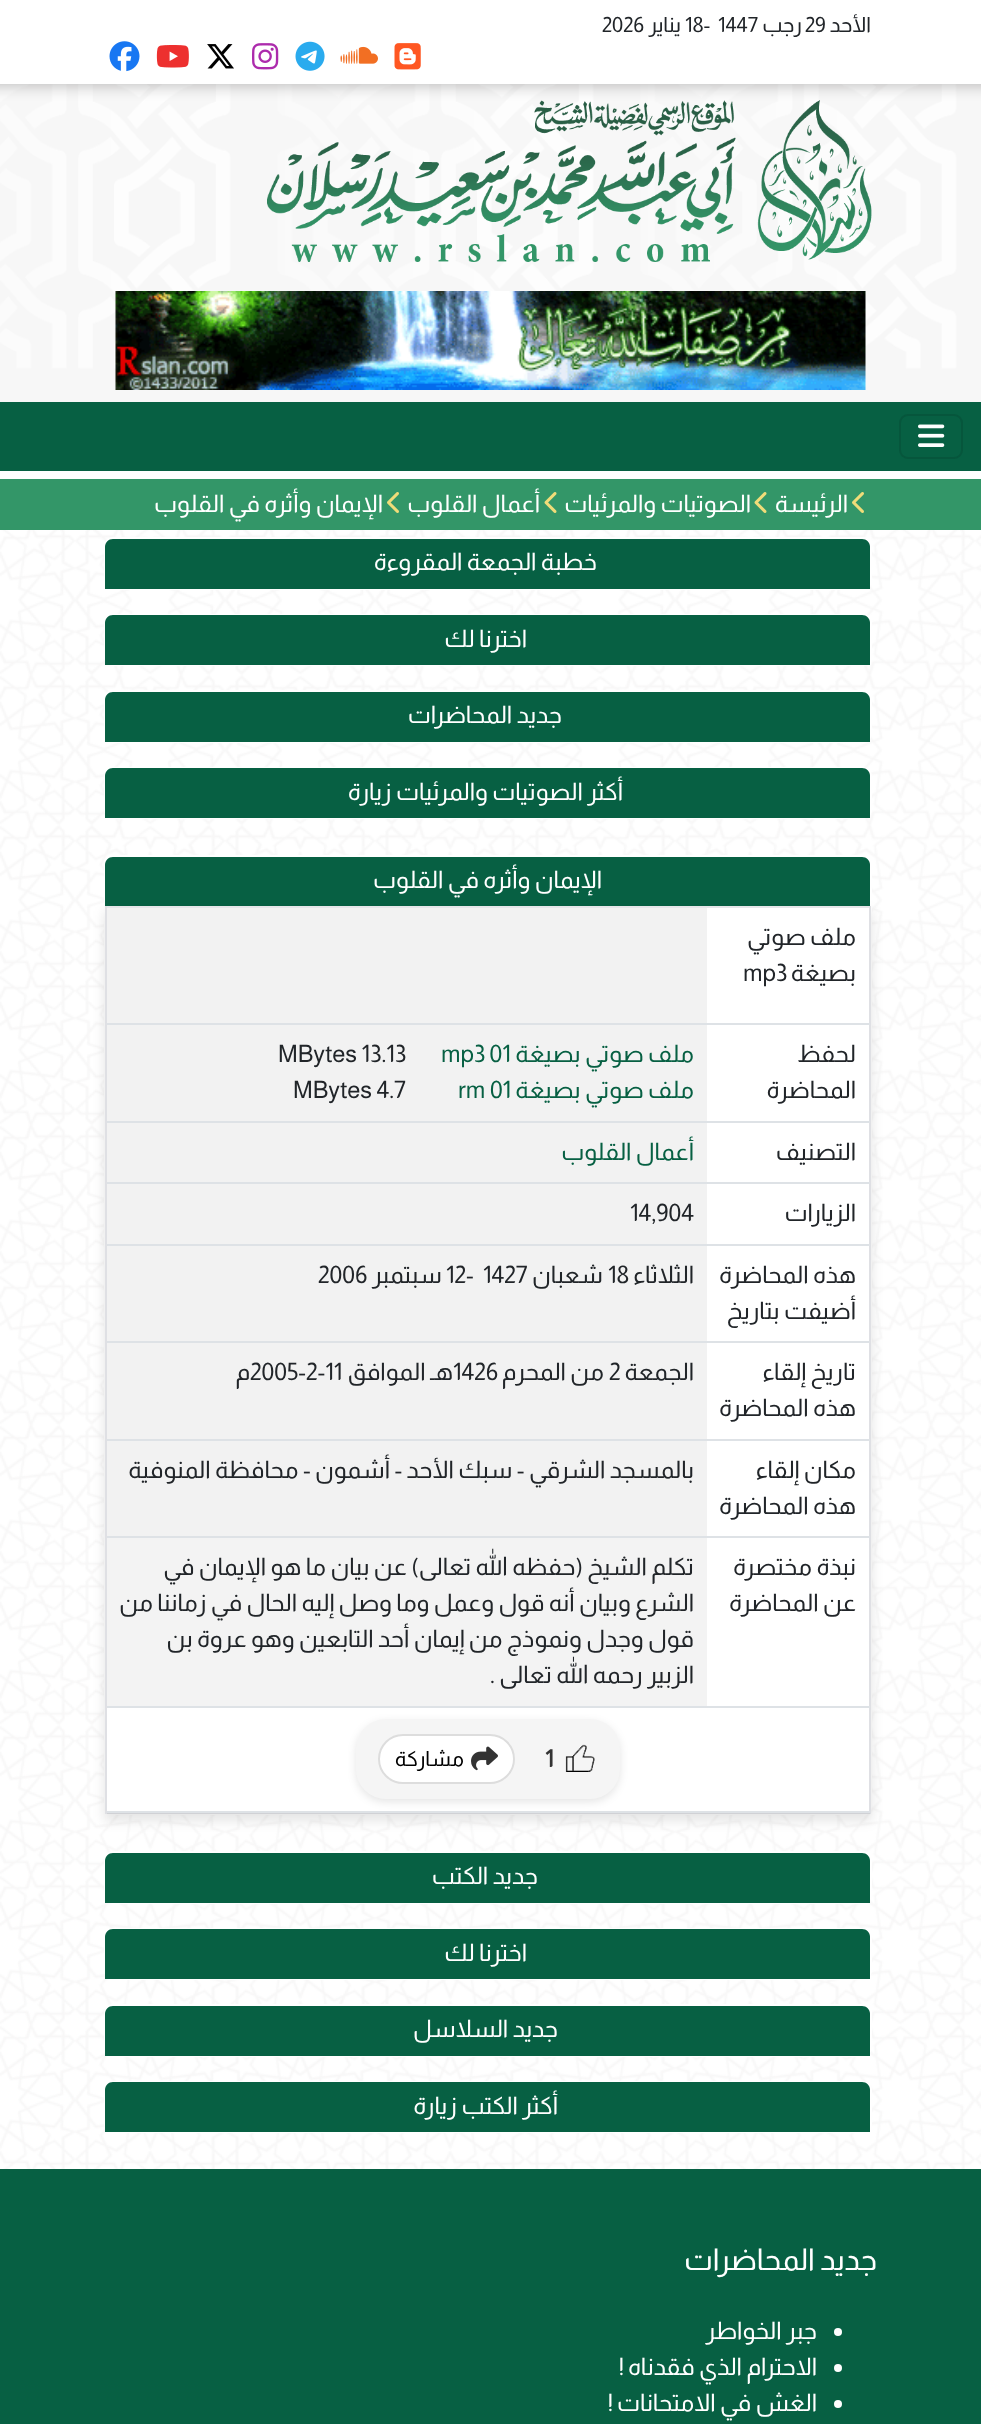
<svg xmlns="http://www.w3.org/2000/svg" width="981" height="2424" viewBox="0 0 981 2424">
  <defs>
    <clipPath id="clip1"><path d="M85 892H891V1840H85ZM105 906H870V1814H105Z" clip-rule="evenodd"/></clipPath>
  </defs>
  <rect width="100%" height="100%" fill="#fff"/>
  <image x="0" y="530" width="981" height="1639" href="img/1.png"/>
  <image x="394" y="43" width="27" height="27" href="img/2.png"/>
  <image x="340" y="46" width="38" height="18" href="img/3.png"/>
  <image x="295" y="41" width="30" height="30" href="img/4.png"/>
  <image x="252" y="43" width="27" height="27" href="img/5.png"/>
  <image x="207" y="44" width="27" height="25" href="img/6.png"/>
  <image x="156" y="45" width="33" height="23" href="img/7.png"/>
  <image x="109" y="41" width="31" height="31" href="img/8.png"/>
  <image x="0" y="84" width="981" height="318" href="img/9.png"/>
  <image x="267" y="100" width="605" height="162" href="img/10.png"/>
  <image x="115" y="291" width="751" height="99" href="img/11.png"/>
  <path d="M0 402h981v69H0z" fill="#076043"/>
  <rect x="900" y="415" width="62" height="43" rx="8" fill="none" stroke="#06563c" stroke-width="2"/>
  <image x="918" y="424" width="27" height="23" href="img/12.png"/>
  <path d="M0 479h981v51H0z" fill="#339668"/>
  <image x="852" y="492" width="12" height="21" href="img/13.png"/>
  <image x="754" y="492" width="13" height="21" href="img/14.png"/>
  <image x="544" y="492" width="13" height="21" href="img/14.png"/>
  <image x="387" y="492" width="12" height="21" href="img/13.png"/>
  <rect x="104" y="537" width="768" height="53" rx="9" fill="#fff"/>
  <path d="M113 539H862C866.5 539 870 542.5 870 547V588H105V547C105 542.5 108.5 539 113 539Z" fill="#076043"/>
  <path d="M105 588h765v1H105z" fill="#076043"/>
  <rect x="104" y="614" width="768" height="52" rx="9" fill="#fff"/>
  <path d="M113 615H862C866.5 615 870 618.5 870 623V665H105V623C105 618.5 108.5 615 113 615Z" fill="#076043"/>
  <rect x="104" y="690" width="768" height="53" rx="9" fill="#fff"/>
  <path d="M113 692H862C866.5 692 870 695.5 870 700V741H105V700C105 695.5 108.5 692 113 692Z" fill="#076043"/>
  <path d="M105 741h765v1H105z" fill="#076043"/>
  <rect x="105" y="768" width="766" height="50" rx="8" fill="none" stroke="#fff" stroke-width="2"/>
  <path d="M113 768H862C866.5 768 870 771.5 870 776V818H105V776C105 771.5 108.5 768 113 768Z" fill="#076043"/>
  <rect x="104" y="855" width="768" height="960" rx="9" fill="#fff"/>
  <path d="M113 857H862C866.5 857 870 860.5 870 865V906H105V865C105 860.5 108.5 857 113 857Z" fill="#076043"/>
  <g clip-path="url(#clip1)">
    <path d="M104 911h768v910H104z" fill="#0000001a" filter="blur(6px)"/>
  </g>
  <path d="M105 906h765v2H105z" fill="#e5e6e9"/>
  <path d="M869 906h2v908H869z" fill="#dfe0e4"/>
  <path d="M105 1813h765v1H105z" fill="#d0d1d5"/>
  <path d="M105 906h2v908H105z" fill="#dfe0e4"/>
  <path d="M107 908h600v115H107z" fill="#f2f2f2"/>
  <path d="M107 1023h763v2H107z" fill="#dee2e6"/>
  <path d="M107 1025h600v96H107z" fill="#f2f2f2"/>
  <path d="M107 1121h763v2H107z" fill="#dee2e6"/>
  <path d="M107 1123h600v59H107z" fill="#f2f2f2"/>
  <path d="M107 1182h763v2H107z" fill="#dee2e6"/>
  <path d="M107 1184h600v60H107z" fill="#f2f2f2"/>
  <path d="M107 1244h763v2H107z" fill="#dee2e6"/>
  <path d="M107 1246h600v95H107z" fill="#f2f2f2"/>
  <path d="M107 1341h763v2H107z" fill="#dee2e6"/>
  <path d="M107 1343h600v96H107z" fill="#f2f2f2"/>
  <path d="M107 1439h763v2H107z" fill="#dee2e6"/>
  <path d="M107 1441h600v95H107z" fill="#f2f2f2"/>
  <path d="M107 1536h763v2H107z" fill="#dee2e6"/>
  <path d="M107 1538h600v168H107z" fill="#f3f3f3"/>
  <path d="M107 1706h763v2H107z" fill="#dee2e6"/>
  <path d="M107 1811h763v2H107z" fill="#dee2e6"/>
  <rect x="356" y="1722" width="264" height="80" rx="30" fill="#0000001a" filter="blur(4px)"/>
  <rect x="356" y="1719" width="264" height="80" rx="30" fill="#f5f5f5"/>
  <image x="565" y="1744" width="30" height="28" href="img/15.png"/>
  <rect x="379" y="1735" width="135" height="48" rx="24" fill="#fff" stroke="#ddd" stroke-width="2"/>
  <image x="471" y="1746" width="27" height="25" href="img/16.png"/>
  <rect x="104" y="1851" width="768" height="53" rx="9" fill="#fff"/>
  <path d="M113 1853H862C866.5 1853 870 1856.5 870 1861V1902H105V1861C105 1856.5 108.5 1853 113 1853Z" fill="#076043"/>
  <path d="M105 1902h765v1H105z" fill="#076043"/>
  <rect x="105" y="1929" width="766" height="50" rx="8" fill="none" stroke="#fff" stroke-width="2"/>
  <path d="M113 1929H862C866.5 1929 870 1932.5 870 1937V1979H105V1937C105 1932.5 108.5 1929 113 1929Z" fill="#076043"/>
  <rect x="104" y="2004" width="768" height="53" rx="9" fill="#fff"/>
  <path d="M113 2006H862C866.5 2006 870 2009.5 870 2014V2055H105V2014C105 2009.5 108.5 2006 113 2006Z" fill="#076043"/>
  <path d="M105 2055h765v1H105z" fill="#076043"/>
  <rect x="104" y="2081" width="768" height="52" rx="9" fill="#fff"/>
  <path d="M113 2082H862C866.5 2082 870 2085.5 870 2090V2132H105V2090C105 2085.5 108.5 2082 113 2082Z" fill="#076043"/>
  <path d="M0 2169h981v255H0z" fill="#076043"/>
  <circle cx="838" cy="2332" r="4" fill="#fff"/>
  <circle cx="838" cy="2368" r="4" fill="#fff"/>
  <circle cx="838" cy="2404" r="4" fill="#fff"/>
  <text x="871" y="32" font-family="Almarai" font-size="21" direction="rtl" fill="#212529">الأحد</text>
  <text x="805" y="32" font-family="Almarai" font-size="21" fill="#212529">29</text>
  <text x="802" y="32" font-family="Almarai" font-size="21" direction="rtl" fill="#212529">رجب</text>
  <g font-family="Almarai" font-size="21" fill="#212529">
    <text x="718" y="32">1447</text>
    <text x="685" y="32">18-</text>
  </g>
  <text x="681" y="32" font-family="Almarai" font-size="21" direction="rtl" fill="#212529">يناير</text>
  <text x="602" y="32" font-family="Almarai" font-size="21" fill="#212529">2026</text>
  <g font-family="Almarai" font-size="24" direction="rtl" fill="#fff">
    <text x="848" y="512">الرئيسة</text>
    <text x="751" y="512">الصوتيات والمرئيات</text>
    <text x="540" y="512">أعمال القلوب</text>
    <text x="383" y="512">الإيمان وأثره في القلوب</text>
    <text x="597" y="570">خطبة الجمعة المقروءة</text>
    <text x="527" y="647">اخترنا لك</text>
    <text x="562" y="723">جديد المحاضرات</text>
    <text x="623" y="800">أكثر الصوتيات والمرئيات زيارة</text>
    <text x="602" y="888">الإيمان وأثره في القلوب</text>
  </g>
  <g font-family="Almarai" font-size="24" direction="rtl" fill="#212529">
    <text x="856" y="945">ملف صوتي</text>
    <text x="856" y="981">بصيغة</text>
  </g>
  <text x="743" y="981" font-family="Almarai" font-size="24" fill="#212529">mp3</text>
  <g font-family="Almarai" font-size="24" direction="rtl" fill="#212529">
    <text x="856" y="1062">لحفظ</text>
    <text x="856" y="1098">المحاضرة</text>
  </g>
  <text x="694" y="1062" font-family="Almarai" font-size="24" direction="rtl" fill="#076043">ملف صوتي بصيغة</text>
  <text x="441" y="1062" font-family="Almarai" font-size="24" fill="#076043">mp3 01</text>
  <text x="278" y="1062" font-family="Almarai" font-size="24" fill="#212529">MBytes 13.13</text>
  <text x="694" y="1098" font-family="Almarai" font-size="24" direction="rtl" fill="#076043">ملف صوتي بصيغة</text>
  <text x="458" y="1098" font-family="Almarai" font-size="24" fill="#076043">rm 01</text>
  <text x="293" y="1098" font-family="Almarai" font-size="24" fill="#212529">MBytes 4.7</text>
  <text x="856" y="1160" font-family="Almarai" font-size="24" direction="rtl" fill="#212529">التصنيف</text>
  <text x="694" y="1160" font-family="Almarai" font-size="24" direction="rtl" fill="#076043">أعمال القلوب</text>
  <text x="856" y="1221" font-family="Almarai" font-size="24" direction="rtl" fill="#212529">الزيارات</text>
  <text x="630" y="1221" font-family="Almarai" font-size="24" fill="#212529">14,904</text>
  <g font-family="Almarai" font-size="24" direction="rtl" fill="#212529">
    <text x="856" y="1283">هذه المحاضرة</text>
    <text x="856" y="1319">أضيفت بتاريخ</text>
    <text x="694" y="1283">الثلاثاء</text>
  </g>
  <text x="608" y="1283" font-family="Almarai" font-size="24" fill="#212529">18</text>
  <text x="603" y="1283" font-family="Almarai" font-size="24" direction="rtl" fill="#212529">شعبان</text>
  <g font-family="Almarai" font-size="24" fill="#212529">
    <text x="483" y="1283">1427</text>
    <text x="446" y="1283">12-</text>
  </g>
  <text x="442" y="1283" font-family="Almarai" font-size="24" direction="rtl" fill="#212529">سبتمبر</text>
  <text x="318" y="1283" font-family="Almarai" font-size="24" fill="#212529">2006</text>
  <g font-family="Almarai" font-size="24" direction="rtl" fill="#212529">
    <text x="856" y="1380">تاريخ إلقاء</text>
    <text x="856" y="1416">هذه المحاضرة</text>
    <text x="694" y="1380">الجمعة</text>
  </g>
  <text x="609" y="1380" font-family="Almarai" font-size="24" fill="#212529">2</text>
  <text x="604" y="1380" font-family="Almarai" font-size="24" direction="rtl" fill="#212529">من المحرم</text>
  <text x="453" y="1380" font-family="Almarai" font-size="24" fill="#212529">1426</text>
  <text x="453" y="1380" font-family="Almarai" font-size="24" direction="rtl" fill="#212529">هـ الموافق</text>
  <text x="250" y="1380" font-family="Almarai" font-size="24" fill="#212529">2005-2-11</text>
  <g font-family="Almarai" font-size="24" direction="rtl" fill="#212529">
    <text x="250" y="1380">م</text>
    <text x="856" y="1478">مكان إلقاء</text>
    <text x="856" y="1514">هذه المحاضرة</text>
    <text x="694" y="1478">بالمسجد الشرقي - سبك الأحد - أشمون - محافظة المنوفية</text>
    <text x="856" y="1575">نبذة مختصرة</text>
    <text x="856" y="1611">عن المحاضرة</text>
    <text x="694" y="1575">تكلم الشيخ (حفظه الله تعالى) عن بيان ما هو الإيمان في</text>
    <text x="694" y="1611">الشرع وبيان أنه قول وعمل وما وصل إليه الحال في زماننا من</text>
    <text x="694" y="1647">قول وجدل ونموذج من إيمان أحد التابعين وهو عروة بن</text>
    <text x="694" y="1683">الزبير رحمه الله تعالى .</text>
  </g>
  <text x="545" y="1767" font-family="Almarai" font-size="24" font-weight="bold" fill="#333">1</text>
  <text x="464" y="1766" font-family="Almarai" font-size="21" direction="rtl" fill="#000">مشاركة</text>
  <g font-family="Almarai" font-size="24" direction="rtl" fill="#fff">
    <text x="538" y="1884">جديد الكتب</text>
    <text x="527" y="1961">اخترنا لك</text>
    <text x="558" y="2037">جديد السلاسل</text>
    <text x="558" y="2114">أكثر الكتب زيارة</text>
  </g>
  <text x="877" y="2270" font-family="Almarai" font-size="30" direction="rtl" fill="#fff">جديد المحاضرات</text>
  <g font-family="Almarai" font-size="24" direction="rtl" fill="#fff">
    <text x="817" y="2339">جبر الخواطر</text>
    <text x="817" y="2375">الاحترام الذي فقدناه !</text>
    <text x="817" y="2411">الغش في الامتحانات !</text>
  </g>
</svg>
